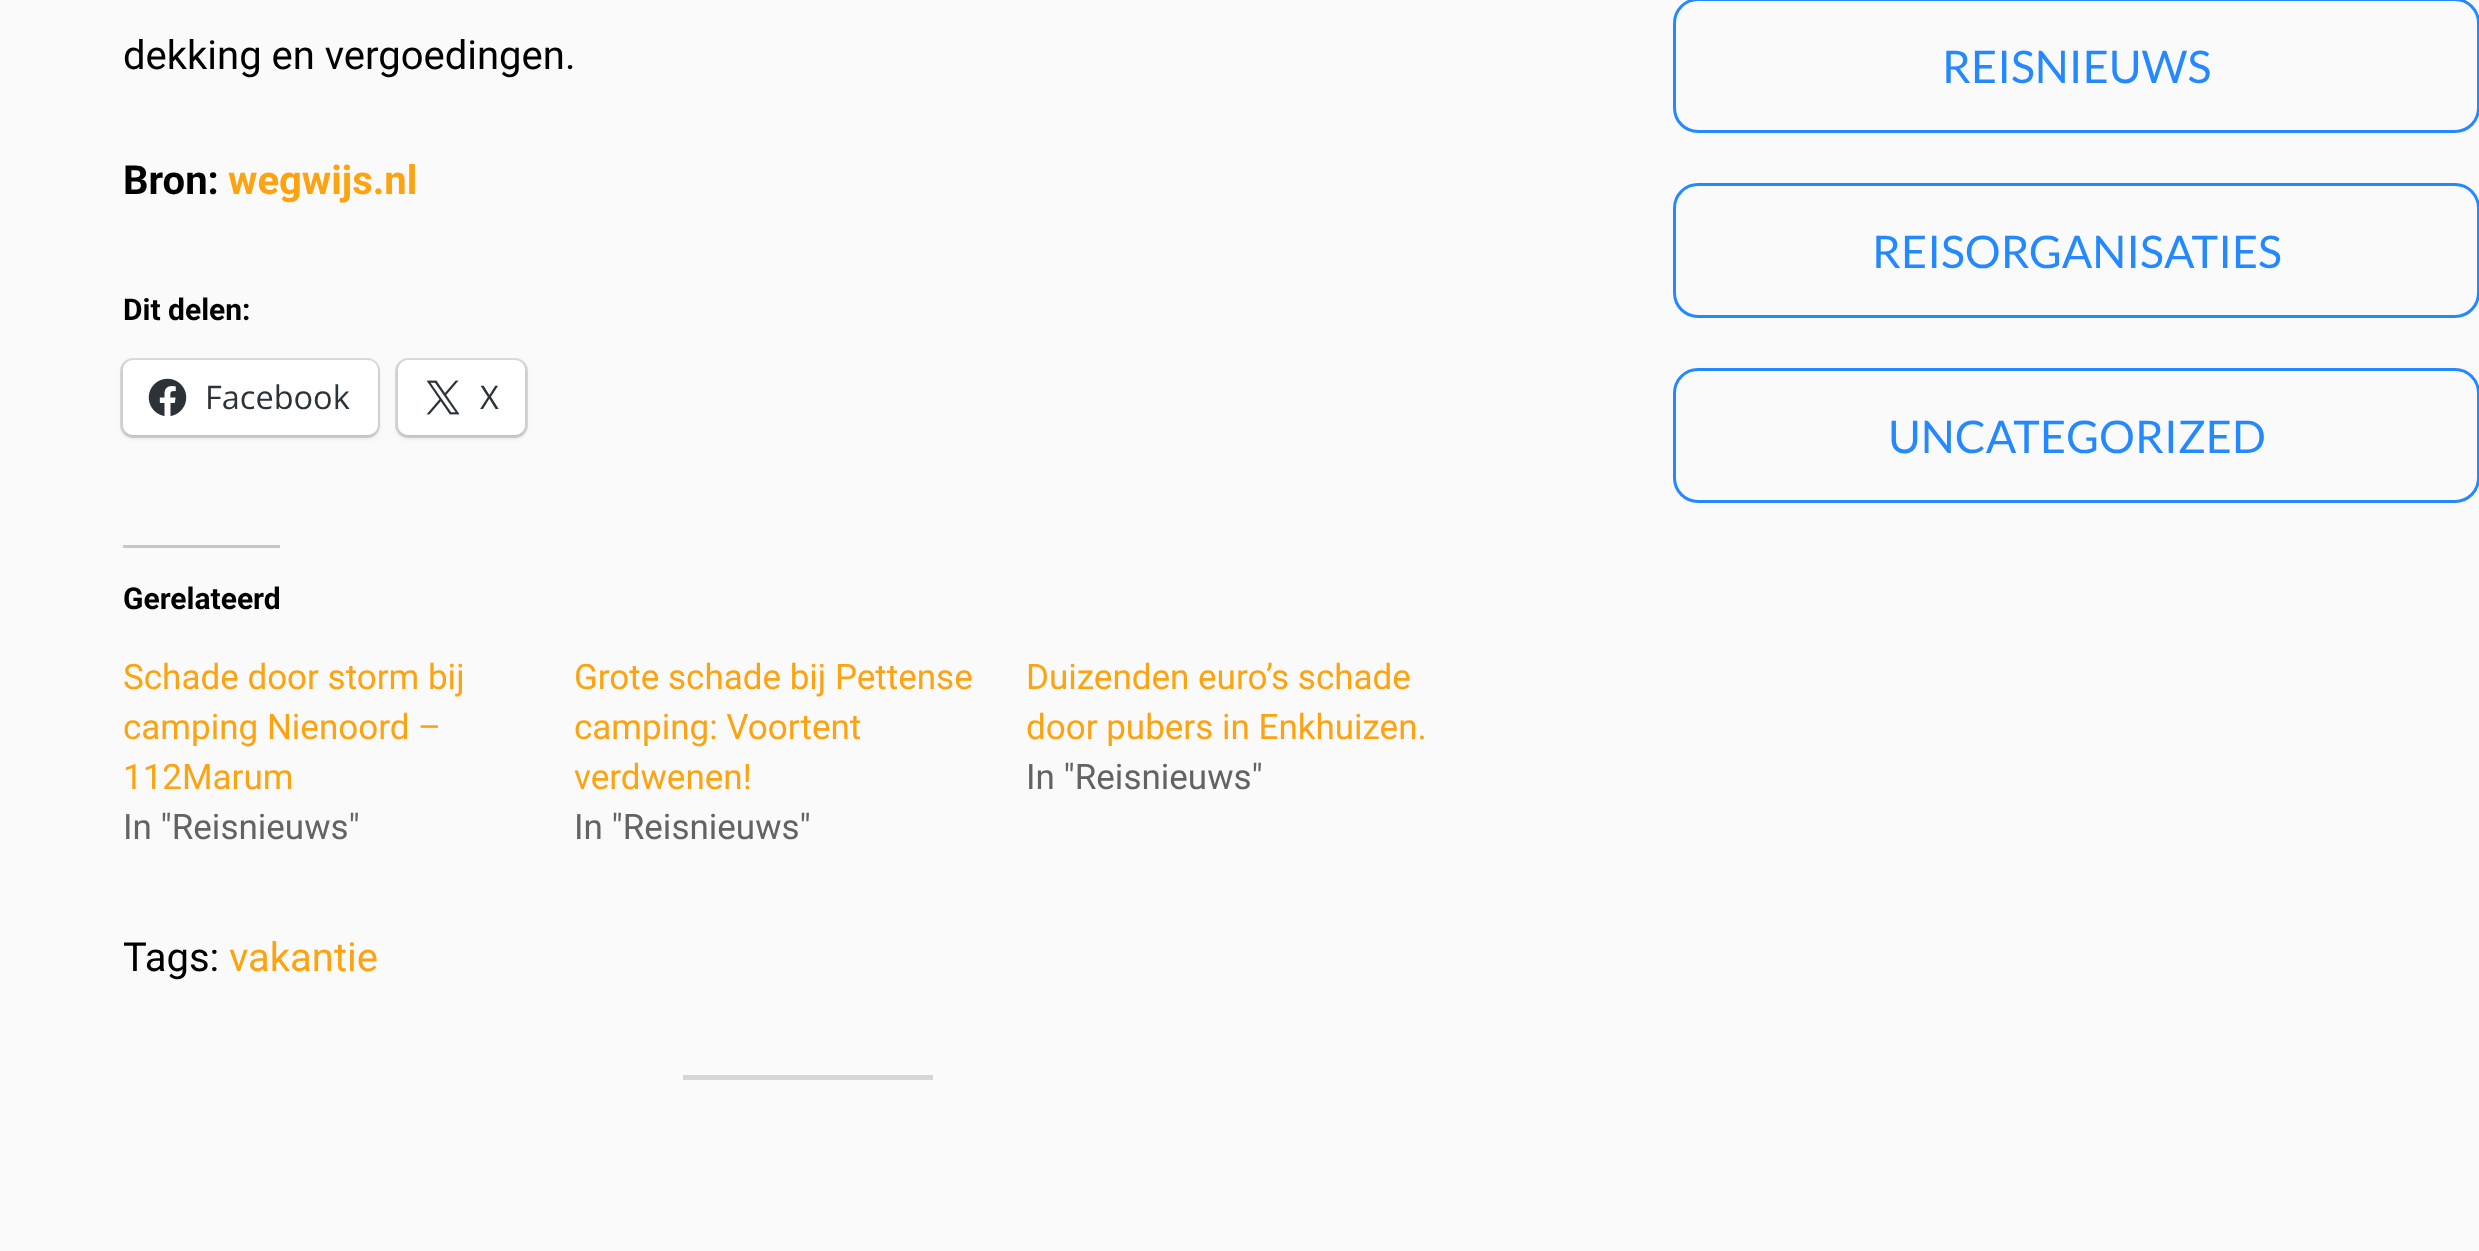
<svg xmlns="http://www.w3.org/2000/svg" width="2479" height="1251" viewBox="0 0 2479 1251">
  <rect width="100%" height="100%" fill="#fafafa"/>
  <rect x="121.5" y="359.5" width="257" height="77" rx="11.5" fill="none" stroke="#dadada" stroke-width="3"/>
  <rect x="123" y="363" width="255" height="75" rx="10" fill="#0000001f" filter="blur(2.5px)"/>
  <rect x="123" y="360" width="255" height="75" rx="10" fill="#fff"/>
  <image x="148" y="378" width="39" height="38" href="img/1.png"/>
  <rect x="396.5" y="359.5" width="130" height="77" rx="11.5" fill="none" stroke="#dadada" stroke-width="3"/>
  <rect x="398" y="363" width="127" height="75" rx="10" fill="#0000001f" filter="blur(2.5px)"/>
  <rect x="398" y="360" width="127" height="75" rx="10" fill="#fff"/>
  <image x="426" y="380" width="34" height="35" href="img/2.png"/>
  <path d="M123 545h157v3H123z" fill="#c6c6c6"/>
  <path d="M683 1075h250v5H683z" fill="#d6d6d6"/>
  <rect x="1674.5" y="-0.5" width="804" height="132" rx="23.5" fill="none" stroke="#2489ff" stroke-width="3"/>
  <rect x="1674.5" y="184.5" width="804" height="132" rx="23.5" fill="none" stroke="#2489ff" stroke-width="3"/>
  <rect x="1674.5" y="369.5" width="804" height="132" rx="23.5" fill="none" stroke="#2489ff" stroke-width="3"/>
  <text x="123" y="69" font-family="Roboto" font-size="40" fill="#000">dekking en vergoedingen.</text>
  <text x="123" y="194" font-family="Roboto" font-size="40" font-weight="bold" fill="#000">Bron:</text>
  <text x="228" y="194" font-family="Roboto" font-size="40" font-weight="bold" fill="#fca311">wegwijs.nl</text>
  <text x="123" y="320" font-family="Roboto" font-size="30" font-weight="bold" fill="#000">Dit delen:</text>
  <g font-family="Open Sans" font-size="32.5" fill="#2c3338">
    <text x="205" y="409">Facebook</text>
    <text x="480" y="409">X</text>
  </g>
  <text x="123" y="609" font-family="Roboto" font-size="30" font-weight="bold" fill="#000">Gerelateerd</text>
  <g font-family="Roboto" font-size="35" fill="#fca311">
    <text x="123" y="689">Schade door storm bij</text>
    <text x="123" y="739">camping Nienoord –</text>
    <text x="123" y="789">112Marum</text>
  </g>
  <text x="123" y="839" font-family="Roboto" font-size="35" fill="#636363">In "Reisnieuws"</text>
  <g font-family="Roboto" font-size="35" fill="#fca311">
    <text x="574" y="689">Grote schade bij Pettense</text>
    <text x="574" y="739">camping: Voortent</text>
    <text x="574" y="789">verdwenen!</text>
  </g>
  <text x="574" y="839" font-family="Roboto" font-size="35" fill="#636363">In "Reisnieuws"</text>
  <g font-family="Roboto" font-size="35" fill="#fca311">
    <text x="1026" y="689">Duizenden euro’s schade</text>
    <text x="1026" y="739">door pubers in Enkhuizen.</text>
  </g>
  <text x="1026" y="789" font-family="Roboto" font-size="35" fill="#636363">In "Reisnieuws"</text>
  <text x="123" y="971" font-family="Roboto" font-size="40" fill="#000">Tags:</text>
  <text x="229" y="971" font-family="Roboto" font-size="40" fill="#fca311">vakantie</text>
  <g font-family="Lato" font-size="45" fill="#2489ff">
    <text x="1942" y="83">REISNIEUWS</text>
    <text x="1872" y="268">REISORGANISATIES</text>
    <text x="1888" y="453">UNCATEGORIZED</text>
  </g>
</svg>
